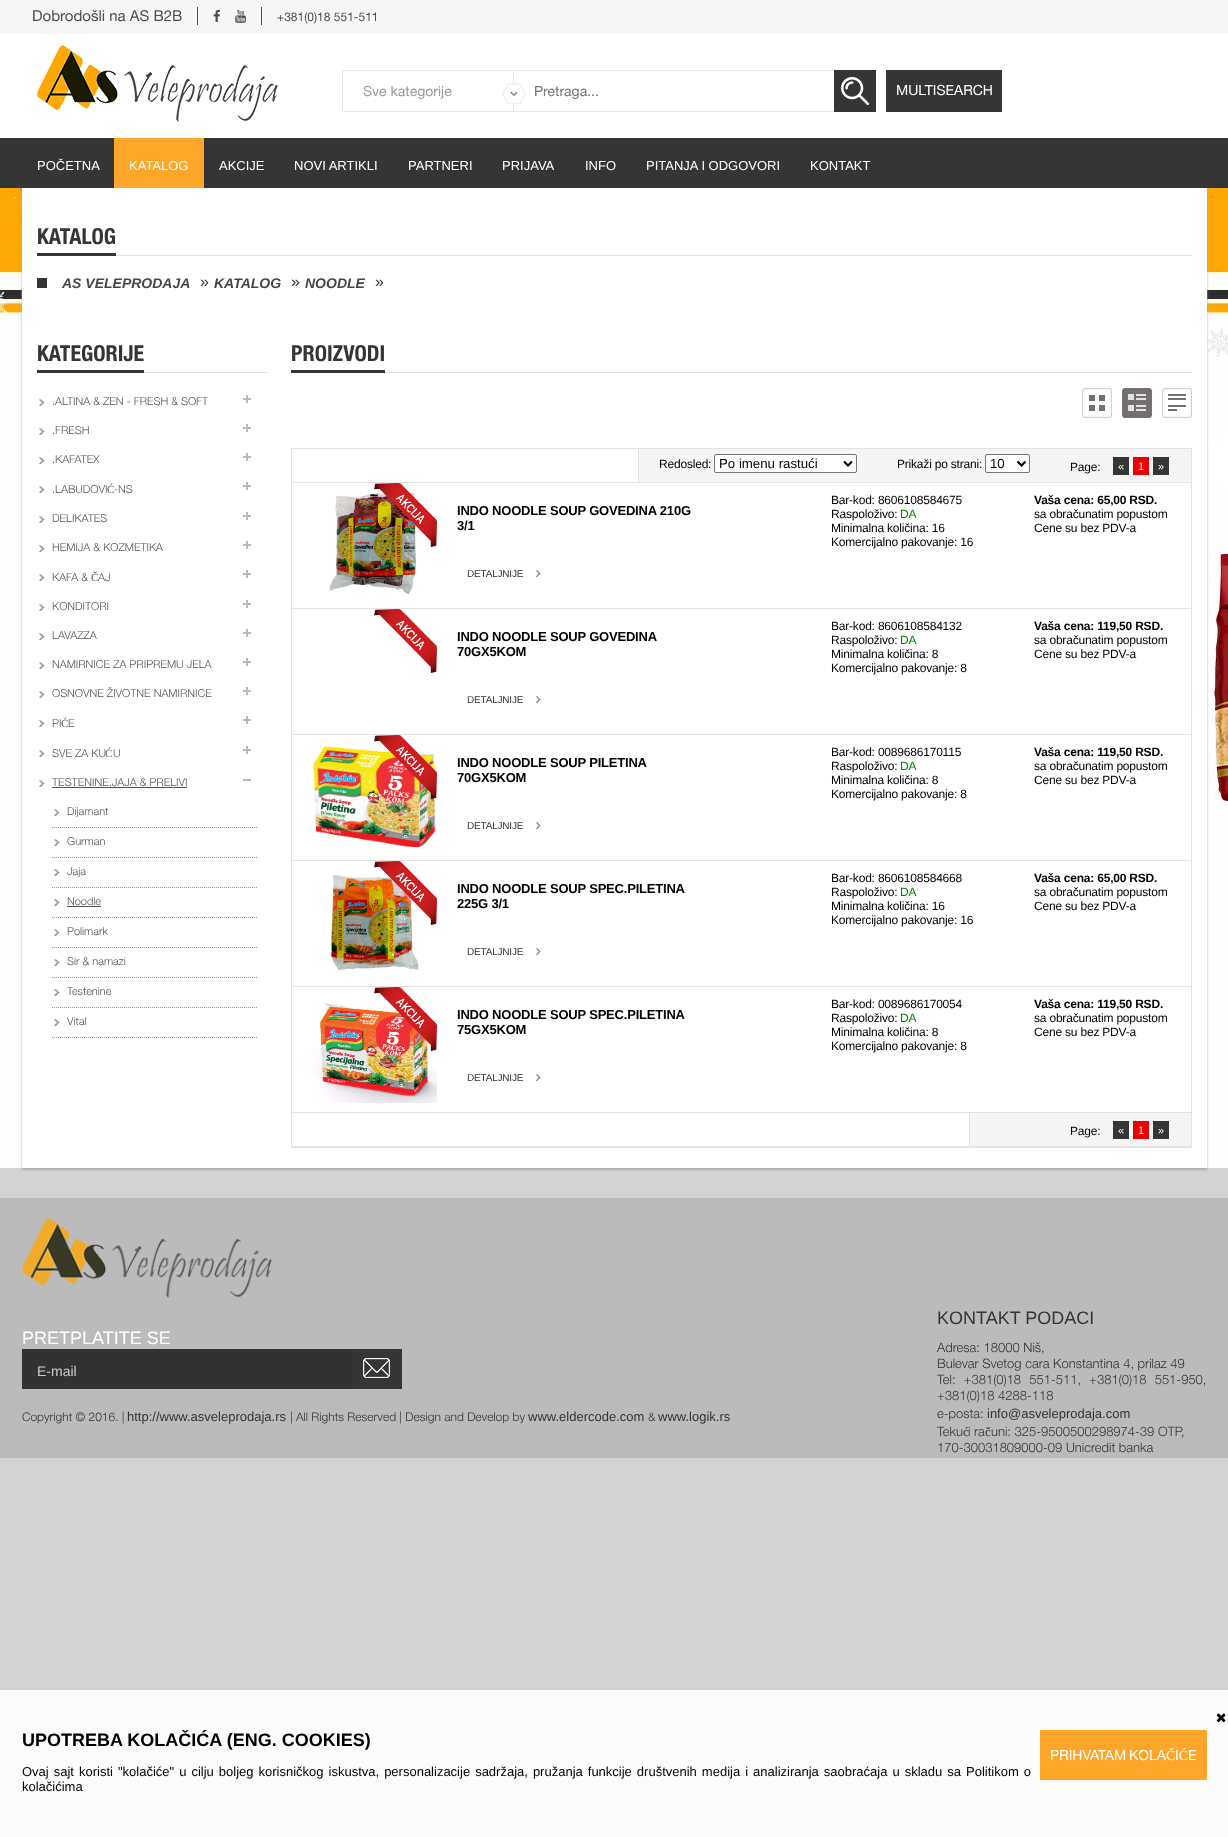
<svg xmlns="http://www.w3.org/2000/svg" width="1228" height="1837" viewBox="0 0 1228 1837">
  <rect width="100%" height="100%" fill="#d3d3d3"/>
  <path d="M0 34h1228v104H0z" fill="#fff"/>
  <path d="M0 0h1228v34H0z" fill="#f6f6f6"/>
  <path d="M197 7h1v18H197z" fill="#4e4e4e"/>
  <image x="213" y="9" width="7" height="13" href="img/1.png"/>
  <image x="235" y="9" width="11" height="14" href="img/2.png"/>
  <path d="M261 7h1v18H261z" fill="#4e4e4e"/>
  <image x="37" y="45" width="241" height="77" href="img/3.png"/>
  <path d="M342 70h492v1H342z" fill="#e8e8e8"/>
  <path d="M342 111h492v1H342z" fill="#e8e8e8"/>
  <path d="M342 70h1v42H342z" fill="#e8e8e8"/>
  <path d="M513 70h1v42H513z" fill="#e8e8e8"/>
  <image x="502" y="83" width="24" height="21" href="img/4.png"/>
  <path d="M834 70h42v42H834z" fill="#353535"/>
  <image x="841" y="77" width="28" height="28" href="img/5.png"/>
  <path d="M886 70h116v42H886z" fill="#353535"/>
  <image x="0" y="188" width="1228" height="980" href="img/6.png"/>
  <path d="M22 190h1185v980H22z" fill="#aaa" filter="blur(1px)"/>
  <path d="M0 138h1228v50H0z" fill="#353535"/>
  <path d="M114 138h90v50H114z" fill="#fda62a"/>
  <path d="M22 188h1185v980H22z" fill="#fff"/>
  <path d="M116 255h1076v1H116z" fill="#e1e1e1"/>
  <path d="M37 253h79v3H37z" fill="#353535"/>
  <path d="M37 278h10v10H37z" fill="#353535"/>
  <path d="M144 372h124v1H144z" fill="#e1e1e1"/>
  <path d="M37 370h107v3H37z" fill="#353535"/>
  <image x="39" y="399" width="6" height="7" href="img/7.png"/>
  <image x="243" y="395" width="8" height="8" href="img/8.png"/>
  <image x="39" y="428" width="6" height="7" href="img/7.png"/>
  <image x="243" y="424" width="8" height="8" href="img/8.png"/>
  <image x="39" y="457" width="6" height="7" href="img/7.png"/>
  <image x="243" y="453" width="8" height="8" href="img/8.png"/>
  <image x="39" y="486" width="6" height="7" href="img/7.png"/>
  <image x="243" y="482" width="8" height="8" href="img/8.png"/>
  <image x="39" y="516" width="6" height="7" href="img/7.png"/>
  <image x="243" y="512" width="8" height="8" href="img/8.png"/>
  <image x="39" y="545" width="6" height="7" href="img/7.png"/>
  <image x="243" y="541" width="8" height="8" href="img/8.png"/>
  <image x="39" y="574" width="6" height="7" href="img/7.png"/>
  <image x="243" y="570" width="8" height="8" href="img/8.png"/>
  <image x="39" y="604" width="6" height="7" href="img/7.png"/>
  <image x="243" y="600" width="8" height="8" href="img/8.png"/>
  <image x="39" y="633" width="6" height="7" href="img/7.png"/>
  <image x="243" y="629" width="8" height="8" href="img/8.png"/>
  <image x="39" y="662" width="6" height="7" href="img/7.png"/>
  <image x="243" y="658" width="8" height="8" href="img/8.png"/>
  <image x="39" y="691" width="6" height="7" href="img/7.png"/>
  <image x="243" y="687" width="8" height="8" href="img/8.png"/>
  <image x="39" y="720" width="6" height="7" href="img/7.png"/>
  <image x="243" y="716" width="8" height="8" href="img/8.png"/>
  <image x="39" y="750" width="6" height="7" href="img/7.png"/>
  <image x="243" y="746" width="8" height="8" href="img/8.png"/>
  <image x="39" y="780" width="6" height="7" href="img/7.png"/>
  <path d="M52 787h135v1H52z" fill="#555"/>
  <path d="M243 779h8v2H243z" fill="#bababa"/>
  <path d="M52 827.5H258" fill="none" stroke="#999" stroke-dasharray="1 1"/>
  <image x="54" y="809" width="6" height="7" href="img/7.png"/>
  <path d="M52 857.5H258" fill="none" stroke="#999" stroke-dasharray="1 1"/>
  <image x="54" y="839" width="6" height="7" href="img/7.png"/>
  <path d="M52 887.5H258" fill="none" stroke="#999" stroke-dasharray="1 1"/>
  <image x="54" y="869" width="6" height="7" href="img/7.png"/>
  <path d="M52 917.5H258" fill="none" stroke="#999" stroke-dasharray="1 1"/>
  <image x="54" y="899" width="6" height="7" href="img/7.png"/>
  <path d="M67 906h34v1H67z" fill="#555"/>
  <path d="M52 947.5H258" fill="none" stroke="#999" stroke-dasharray="1 1"/>
  <image x="54" y="929" width="6" height="7" href="img/7.png"/>
  <path d="M52 977.5H258" fill="none" stroke="#999" stroke-dasharray="1 1"/>
  <image x="54" y="959" width="6" height="7" href="img/7.png"/>
  <path d="M52 1007.5H258" fill="none" stroke="#999" stroke-dasharray="1 1"/>
  <image x="54" y="989" width="6" height="7" href="img/7.png"/>
  <path d="M52 1037.5H258" fill="none" stroke="#999" stroke-dasharray="1 1"/>
  <image x="54" y="1019" width="6" height="7" href="img/7.png"/>
  <path d="M385 372h807v1H385z" fill="#e1e1e1"/>
  <path d="M291 370h94v3H291z" fill="#353535"/>
  <image x="1082" y="388" width="30" height="30" href="img/9.png"/>
  <image x="1122" y="388" width="30" height="30" href="img/10.png"/>
  <image x="1162" y="388" width="30" height="30" href="img/11.png"/>
  <path d="M291.5 448.5h900v699H291.5z" fill="none" stroke="#e3e3e3"/>
  <path d="M292 482h899v1H292z" fill="#e3e3e3"/>
  <path d="M638 449h1v33H638z" fill="#e3e3e3"/>
  <path d="M639 449h552v33H639z" fill="#f5f5f5"/>
  <rect x="714.5" y="454.5" width="142" height="18" rx="1.5" fill="#fff" stroke="#767676"/>
  <path d="M844 461.5L848 465.5L852 461.5" fill="none" stroke="#000" stroke-width="2"/>
  <rect x="985.5" y="454.5" width="44" height="18" rx="1.5" fill="#fff" stroke="#767676"/>
  <path d="M1017.5 461.5L1021.5 465.5L1025.5 461.5" fill="none" stroke="#000" stroke-width="2"/>
  <path d="M1113 457h16v18H1113z" fill="#353535"/>
  <path d="M1133 457h16v18H1133z" fill="#eb0000"/>
  <path d="M1153 457h16v18H1153z" fill="#353535"/>
  <path d="M292 608h899v1H292z" fill="#e3e3e3"/>
  <image x="329" y="493" width="87" height="102" href="img/12.png"/>
  <image x="374" y="483" width="63" height="64" href="img/13.png"/>
  <image x="536" y="570" width="5" height="7" href="img/14.png"/>
  <path d="M292 734h899v1H292z" fill="#e3e3e3"/>
  <image x="374" y="609" width="63" height="64" href="img/15.png"/>
  <image x="536" y="696" width="5" height="7" href="img/14.png"/>
  <path d="M292 860h899v1H292z" fill="#e3e3e3"/>
  <image x="313" y="746" width="123" height="102" href="img/16.png"/>
  <image x="374" y="735" width="63" height="64" href="img/17.png"/>
  <image x="536" y="822" width="5" height="7" href="img/14.png"/>
  <path d="M292 986h899v1H292z" fill="#e3e3e3"/>
  <image x="330" y="875" width="89" height="95" href="img/18.png"/>
  <image x="374" y="861" width="63" height="64" href="img/19.png"/>
  <image x="536" y="948" width="5" height="7" href="img/14.png"/>
  <path d="M292 1112h899v1H292z" fill="#e3e3e3"/>
  <image x="312" y="1002" width="125" height="101" href="img/20.png"/>
  <image x="374" y="987" width="63" height="64" href="img/21.png"/>
  <image x="536" y="1074" width="5" height="7" href="img/14.png"/>
  <path d="M292 1146h899v1H292z" fill="#e3e3e3"/>
  <path d="M969 1113h1v33H969z" fill="#e3e3e3"/>
  <path d="M970 1113h221v33H970z" fill="#f5f5f5"/>
  <path d="M1113 1121h16v18H1113z" fill="#353535"/>
  <path d="M1133 1121h16v18H1133z" fill="#eb0000"/>
  <path d="M1153 1121h16v18H1153z" fill="#353535"/>
  <path d="M0 1198h1228v260H0z" fill="#bbb"/>
  <image x="22" y="1218" width="250" height="80" href="img/22.png"/>
  <path d="M22 1349h330v40H22z" fill="#323232"/>
  <path d="M352 1349h50v40H352z" fill="#353535"/>
  <image x="363" y="1358" width="27" height="20" href="img/23.png"/>
  <path d="M0 1690h1228v147H0z" fill="#fbfbfb"/>
  <image x="1216" y="1713" width="10" height="10" href="img/24.png"/>
  <path d="M1040 1730h167v50H1040z" fill="#fda62a"/>
  <text x="32" y="21" font-family="Helvetica Neue" font-size="15" fill="#4e4e4e">Dobrodošli na AS B2B</text>
  <text x="277" y="21" font-family="Helvetica Neue" font-size="12" fill="#4e4e4e">+381(0)18 551-511</text>
  <text x="363" y="96" font-family="Helvetica Neue" font-size="14" fill="#999">Sve kategorije</text>
  <text x="534" y="96" font-family="Helvetica Neue" font-size="14" fill="#757575">Pretraga...</text>
  <text x="896" y="95" font-family="Helvetica Neue" font-size="14" fill="#fff">MULTISEARCH</text>
  <g font-family="Liberation Sans" font-size="13" fill="#fff">
    <text x="37" y="170">POČETNA</text>
    <text x="129" y="170">KATALOG</text>
    <text x="219" y="170">AKCIJE</text>
    <text x="294" y="170">NOVI ARTIKLI</text>
    <text x="408" y="170">PARTNERI</text>
    <text x="502" y="170">PRIJAVA</text>
    <text x="585" y="170">INFO</text>
    <text x="646" y="170">PITANJA I ODGOVORI</text>
    <text x="810" y="170">KONTAKT</text>
  </g>
  <text x="37" y="244" font-family="Helvetica Neue" font-size="22" font-weight="bold" fill="#353535">KATALOG</text>
  <text x="62" y="288" font-family="Liberation Sans" font-size="14" font-weight="bold" font-style="italic" fill="#464646">AS VELEPRODAJA</text>
  <text x="200" y="287" font-family="Liberation Sans" font-size="16" fill="#353535">»</text>
  <text x="214" y="288" font-family="Liberation Sans" font-size="14" font-weight="bold" font-style="italic" fill="#464646">KATALOG</text>
  <text x="291" y="287" font-family="Liberation Sans" font-size="16" fill="#353535">»</text>
  <text x="305" y="288" font-family="Liberation Sans" font-size="14" font-weight="bold" font-style="italic" fill="#464646">NOODLE</text>
  <text x="375" y="287" font-family="Liberation Sans" font-size="16" fill="#353535">»</text>
  <text x="37" y="361" font-family="Helvetica Neue" font-size="22" font-weight="bold" fill="#353535">KATEGORIJE</text>
  <g font-family="Helvetica Neue" font-size="11" font-weight="300" fill="#555">
    <text x="52" y="405">.ALTINA &amp; ZEN - FRESH &amp; SOFT</text>
    <text x="52" y="434">.FRESH</text>
    <text x="52" y="463">.KAFATEX</text>
    <text x="52" y="493">.LABUDOVI</text>
  </g>
  <text x="107" y="493" font-family="Liberation Serif" font-size="11" fill="#555">Ć</text>
  <g font-family="Helvetica Neue" font-size="11" font-weight="300" fill="#555">
    <text x="114" y="493">-NS</text>
    <text x="52" y="522">DELIKATES</text>
    <text x="52" y="551">HEMIJA &amp; KOZMETIKA</text>
    <text x="52" y="581">KAFA &amp;</text>
  </g>
  <text x="91" y="581" font-family="Liberation Serif" font-size="11" fill="#555">Č</text>
  <g font-family="Helvetica Neue" font-size="11" font-weight="300" fill="#555">
    <text x="98" y="581">AJ</text>
    <text x="52" y="610">KONDITORI</text>
    <text x="52" y="639">LAVAZZA</text>
    <text x="52" y="668">NAMIRNICE ZA PRIPREMU JELA</text>
    <text x="52" y="697">OSNOVNE ŽIVOTNE NAMIRNICE</text>
    <text x="52" y="727">PI</text>
  </g>
  <text x="61" y="727" font-family="Liberation Serif" font-size="11" fill="#555">Ć</text>
  <g font-family="Helvetica Neue" font-size="11" font-weight="300" fill="#555">
    <text x="68" y="727">E</text>
    <text x="52" y="757">SVE ZA KU</text>
  </g>
  <text x="105" y="757" font-family="Liberation Serif" font-size="11" fill="#555">Ć</text>
  <g font-family="Helvetica Neue" font-size="11" font-weight="300" fill="#555">
    <text x="113" y="757">U</text>
    <text x="52" y="786">TESTENINE,JAJA &amp; PRELIVI</text>
    <text x="67" y="815">Dijamant</text>
    <text x="67" y="845">Gurman</text>
    <text x="67" y="875">Jaja</text>
    <text x="67" y="905">Noodle</text>
    <text x="67" y="935">Polimark</text>
    <text x="67" y="965">Sir &amp; namazi</text>
    <text x="67" y="995">Testenine</text>
    <text x="67" y="1025">Vital</text>
  </g>
  <text x="291" y="361" font-family="Helvetica Neue" font-size="22" font-weight="bold" fill="#353535">PROIZVODI</text>
  <text x="659" y="468" font-family="Liberation Sans" font-size="12" letter-spacing="-0.2" fill="#000">Redosled:</text>
  <text x="719" y="468" font-family="Liberation Sans" font-size="13.25" fill="#000">Po imenu rastući</text>
  <text x="897" y="468" font-family="Liberation Sans" font-size="12" letter-spacing="-0.2" fill="#000">Prikaži po strani:</text>
  <text x="990" y="468" font-family="Liberation Sans" font-size="13.25" fill="#000">10</text>
  <text x="1070" y="471" font-family="Liberation Sans" font-size="12" letter-spacing="-0.2" fill="#000">Page:</text>
  <g font-family="Liberation Sans" font-size="11" letter-spacing="-0.2" fill="#fff">
    <text x="1118" y="470">«</text>
    <text x="1138" y="470">1</text>
    <text x="1158" y="470">»</text>
  </g>
  <g font-family="Liberation Sans" font-size="13" font-weight="bold" letter-spacing="-0.2" fill="#000">
    <text x="457" y="515">INDO NOODLE SOUP GOVEDINA 210G</text>
    <text x="457" y="530">3/1</text>
  </g>
  <text x="467" y="577" font-family="Liberation Sans" font-size="10" letter-spacing="-0.2" fill="#353535">DETALJNIJE</text>
  <g font-family="Liberation Sans" font-size="12" letter-spacing="-0.2" fill="#000">
    <text x="831" y="504">Bar-kod: 8606108584675</text>
    <text x="831" y="518">Raspoloživo:</text>
  </g>
  <text x="900" y="518" font-family="Liberation Sans" font-size="12" letter-spacing="-0.2" fill="#008000">DA</text>
  <g font-family="Liberation Sans" font-size="12" letter-spacing="-0.2" fill="#000">
    <text x="831" y="532">Minimalna količina: 16</text>
    <text x="831" y="546">Komercijalno pakovanje: 16</text>
  </g>
  <text x="1034" y="504" font-family="Liberation Sans" font-size="12" font-weight="bold" letter-spacing="-0.2" fill="#000">Vaša cena: 65,00 RSD.</text>
  <g font-family="Liberation Sans" font-size="12" letter-spacing="-0.2" fill="#000">
    <text x="1034" y="518">sa obračunatim popustom</text>
    <text x="1034" y="532">Cene su bez PDV-a</text>
  </g>
  <g font-family="Liberation Sans" font-size="13" font-weight="bold" letter-spacing="-0.2" fill="#000">
    <text x="457" y="641">INDO NOODLE SOUP GOVEDINA</text>
    <text x="457" y="656">70GX5KOM</text>
  </g>
  <text x="467" y="703" font-family="Liberation Sans" font-size="10" letter-spacing="-0.2" fill="#353535">DETALJNIJE</text>
  <g font-family="Liberation Sans" font-size="12" letter-spacing="-0.2" fill="#000">
    <text x="831" y="630">Bar-kod: 8606108584132</text>
    <text x="831" y="644">Raspoloživo:</text>
  </g>
  <text x="900" y="644" font-family="Liberation Sans" font-size="12" letter-spacing="-0.2" fill="#008000">DA</text>
  <g font-family="Liberation Sans" font-size="12" letter-spacing="-0.2" fill="#000">
    <text x="831" y="658">Minimalna količina: 8</text>
    <text x="831" y="672">Komercijalno pakovanje: 8</text>
  </g>
  <text x="1034" y="630" font-family="Liberation Sans" font-size="12" font-weight="bold" letter-spacing="-0.2" fill="#000">Vaša cena: 119,50 RSD.</text>
  <g font-family="Liberation Sans" font-size="12" letter-spacing="-0.2" fill="#000">
    <text x="1034" y="644">sa obračunatim popustom</text>
    <text x="1034" y="658">Cene su bez PDV-a</text>
  </g>
  <g font-family="Liberation Sans" font-size="13" font-weight="bold" letter-spacing="-0.2" fill="#000">
    <text x="457" y="767">INDO NOODLE SOUP PILETINA</text>
    <text x="457" y="782">70GX5KOM</text>
  </g>
  <text x="467" y="829" font-family="Liberation Sans" font-size="10" letter-spacing="-0.2" fill="#353535">DETALJNIJE</text>
  <g font-family="Liberation Sans" font-size="12" letter-spacing="-0.2" fill="#000">
    <text x="831" y="756">Bar-kod: 0089686170115</text>
    <text x="831" y="770">Raspoloživo:</text>
  </g>
  <text x="900" y="770" font-family="Liberation Sans" font-size="12" letter-spacing="-0.2" fill="#008000">DA</text>
  <g font-family="Liberation Sans" font-size="12" letter-spacing="-0.2" fill="#000">
    <text x="831" y="784">Minimalna količina: 8</text>
    <text x="831" y="798">Komercijalno pakovanje: 8</text>
  </g>
  <text x="1034" y="756" font-family="Liberation Sans" font-size="12" font-weight="bold" letter-spacing="-0.2" fill="#000">Vaša cena: 119,50 RSD.</text>
  <g font-family="Liberation Sans" font-size="12" letter-spacing="-0.2" fill="#000">
    <text x="1034" y="770">sa obračunatim popustom</text>
    <text x="1034" y="784">Cene su bez PDV-a</text>
  </g>
  <g font-family="Liberation Sans" font-size="13" font-weight="bold" letter-spacing="-0.2" fill="#000">
    <text x="457" y="893">INDO NOODLE SOUP SPEC.PILETINA</text>
    <text x="457" y="908">225G 3/1</text>
  </g>
  <text x="467" y="955" font-family="Liberation Sans" font-size="10" letter-spacing="-0.2" fill="#353535">DETALJNIJE</text>
  <g font-family="Liberation Sans" font-size="12" letter-spacing="-0.2" fill="#000">
    <text x="831" y="882">Bar-kod: 8606108584668</text>
    <text x="831" y="896">Raspoloživo:</text>
  </g>
  <text x="900" y="896" font-family="Liberation Sans" font-size="12" letter-spacing="-0.2" fill="#008000">DA</text>
  <g font-family="Liberation Sans" font-size="12" letter-spacing="-0.2" fill="#000">
    <text x="831" y="910">Minimalna količina: 16</text>
    <text x="831" y="924">Komercijalno pakovanje: 16</text>
  </g>
  <text x="1034" y="882" font-family="Liberation Sans" font-size="12" font-weight="bold" letter-spacing="-0.2" fill="#000">Vaša cena: 65,00 RSD.</text>
  <g font-family="Liberation Sans" font-size="12" letter-spacing="-0.2" fill="#000">
    <text x="1034" y="896">sa obračunatim popustom</text>
    <text x="1034" y="910">Cene su bez PDV-a</text>
  </g>
  <g font-family="Liberation Sans" font-size="13" font-weight="bold" letter-spacing="-0.2" fill="#000">
    <text x="457" y="1019">INDO NOODLE SOUP SPEC.PILETINA</text>
    <text x="457" y="1034">75GX5KOM</text>
  </g>
  <text x="467" y="1081" font-family="Liberation Sans" font-size="10" letter-spacing="-0.2" fill="#353535">DETALJNIJE</text>
  <g font-family="Liberation Sans" font-size="12" letter-spacing="-0.2" fill="#000">
    <text x="831" y="1008">Bar-kod: 0089686170054</text>
    <text x="831" y="1022">Raspoloživo:</text>
  </g>
  <text x="900" y="1022" font-family="Liberation Sans" font-size="12" letter-spacing="-0.2" fill="#008000">DA</text>
  <g font-family="Liberation Sans" font-size="12" letter-spacing="-0.2" fill="#000">
    <text x="831" y="1036">Minimalna količina: 8</text>
    <text x="831" y="1050">Komercijalno pakovanje: 8</text>
  </g>
  <text x="1034" y="1008" font-family="Liberation Sans" font-size="12" font-weight="bold" letter-spacing="-0.2" fill="#000">Vaša cena: 119,50 RSD.</text>
  <g font-family="Liberation Sans" font-size="12" letter-spacing="-0.2" fill="#000">
    <text x="1034" y="1022">sa obračunatim popustom</text>
    <text x="1034" y="1036">Cene su bez PDV-a</text>
    <text x="1070" y="1135">Page:</text>
  </g>
  <g font-family="Liberation Sans" font-size="11" letter-spacing="-0.2" fill="#fff">
    <text x="1118" y="1134">«</text>
    <text x="1138" y="1134">1</text>
    <text x="1158" y="1134">»</text>
  </g>
  <text x="22" y="1344" font-family="Liberation Sans" font-size="18" fill="#fff">PRETPLATITE SE</text>
  <text x="37" y="1376" font-family="Liberation Sans" font-size="14" fill="#ccc">E-mail</text>
  <text x="937" y="1324" font-family="Liberation Sans" font-size="18" fill="#353535">KONTAKT PODACI</text>
  <g font-family="Helvetica Neue" font-size="13" font-weight="300" fill="#353535">
    <text x="937" y="1352">Adresa: 18000 Niš,</text>
    <text x="937" y="1368">Bulevar Svetog cara Konstantina 4, prilaz 49</text>
    <text x="937" y="1384" word-spacing="4.5">Tel: +381(0)18 551-511, +381(0)18 551-950,</text>
    <text x="937" y="1400">+381(0)18 4288-118</text>
    <text x="937" y="1418">e-posta:</text>
  </g>
  <text x="987" y="1418" font-family="Liberation Sans" font-size="13" fill="#353535">info@asveleprodaja.com</text>
  <text x="937" y="1436" font-family="Helvetica Neue" font-size="13" font-weight="300" fill="#353535">Teku</text>
  <text x="963" y="1436" font-family="Liberation Serif" font-size="13" fill="#353535">ć</text>
  <text x="968" y="1436" font-family="Helvetica Neue" font-size="13" font-weight="300" fill="#353535">i ra</text>
  <text x="985" y="1436" font-family="Liberation Serif" font-size="13" fill="#353535">č</text>
  <g font-family="Helvetica Neue" font-size="13" font-weight="300" fill="#353535">
    <text x="991" y="1436">uni: 325-9500500298974-39 OTP,</text>
    <text x="937" y="1452">170-30031809000-09 Unicredit banka</text>
  </g>
  <text x="22" y="1421" font-family="Helvetica Neue" font-size="12" font-weight="300" fill="#353535">Copyright © 2016. |</text>
  <text x="127" y="1421" font-family="Liberation Sans" font-size="13" fill="#353535">http://www.asveleprodaja.rs</text>
  <text x="290" y="1421" font-family="Helvetica Neue" font-size="12" font-weight="300" fill="#353535">| All Rights Reserved | Design and Develop by</text>
  <text x="528" y="1421" font-family="Liberation Sans" font-size="13" fill="#353535">www.eldercode.com</text>
  <text x="648" y="1421" font-family="Helvetica Neue" font-size="12" font-weight="300" fill="#353535">&amp;</text>
  <text x="658" y="1421" font-family="Liberation Sans" font-size="13" fill="#353535">www.logik.rs</text>
  <text x="22" y="1746" font-family="Liberation Sans" font-size="18" font-weight="bold" fill="#000">UPOTREBA KOLAČIĆA (ENG. COOKIES)</text>
  <text x="1050" y="1760" word-spacing="-1" font-family="Helvetica Neue" font-size="14" fill="#fff">PRIHVATAM KOLA</text>
  <text x="1166" y="1760" font-family="Liberation Serif" font-size="14" fill="#fff">Č Ć</text>
  <g font-family="Helvetica Neue" font-size="14" fill="#fff">
    <text x="1175" y="1760">I</text>
    <text x="1188" y="1760">E</text>
  </g>
  <g font-family="Liberation Sans" font-size="13" fill="#000">
    <text x="22" y="1776" word-spacing="1.4">Ovaj sajt koristi "kolačiće" u cilju boljeg korisničkog iskustva, personalizacije sadržaja, pružanja funkcije društvenih medija i analiziranja saobraćaja u skladu sa Politikom o</text>
    <text x="22" y="1791">kolačićima</text>
  </g>
</svg>
